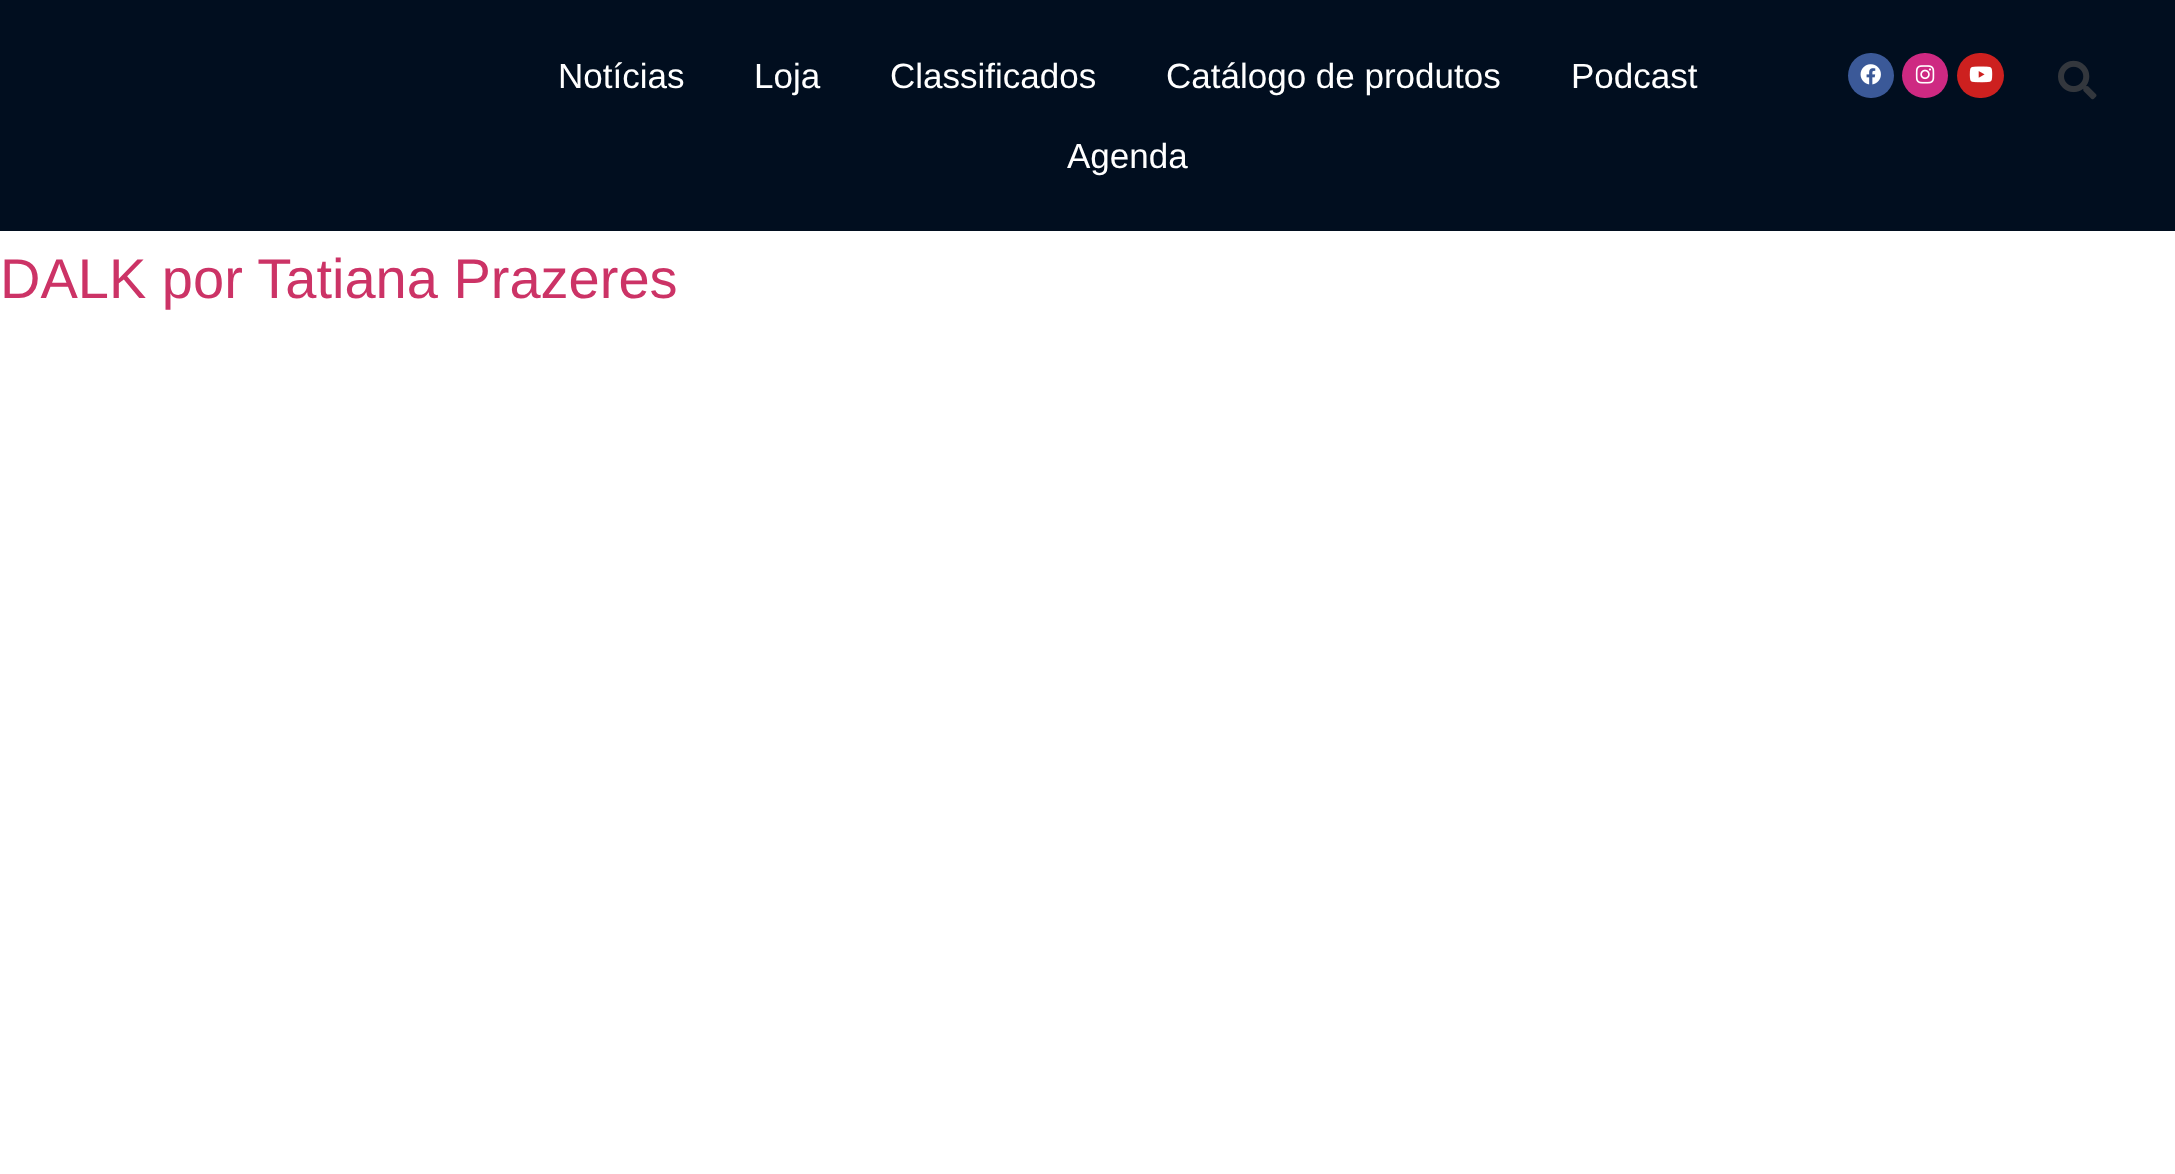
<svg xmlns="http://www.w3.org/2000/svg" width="2175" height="1174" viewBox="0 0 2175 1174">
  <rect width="100%" height="100%" fill="#fff"/>
  <path d="M0 0h2175v231H0z" fill="#010e1f"/>
  <rect x="1848" y="53" width="46" height="45" rx="22.5" fill="#3b5998"/>
  <image x="1860" y="64" width="21" height="21" href="img/1.png"/>
  <rect x="1902" y="53" width="46" height="45" rx="22.5" fill="#ce2982"/>
  <image x="1915" y="65" width="20" height="19" href="img/2.png"/>
  <rect x="1957" y="53" width="47" height="45" rx="22.5" fill="#cd201f"/>
  <image x="1969" y="66" width="24" height="17" href="img/3.png"/>
  <image x="2058" y="60" width="39" height="40" href="img/4.png"/>
  <g font-family="Liberation Sans" font-size="35" fill="#fff">
    <text x="558" y="88">Notícias</text>
    <text x="754" y="88">Loja</text>
    <text x="890" y="88">Classificados</text>
    <text x="1166" y="88">Catálogo de produtos</text>
    <text x="1571" y="88">Podcast</text>
    <text x="1067" y="168">Agenda</text>
  </g>
  <text x="0" y="298" font-family="Liberation Sans" font-size="56" fill="#c36">DALK por Tatiana Prazeres</text>
</svg>
